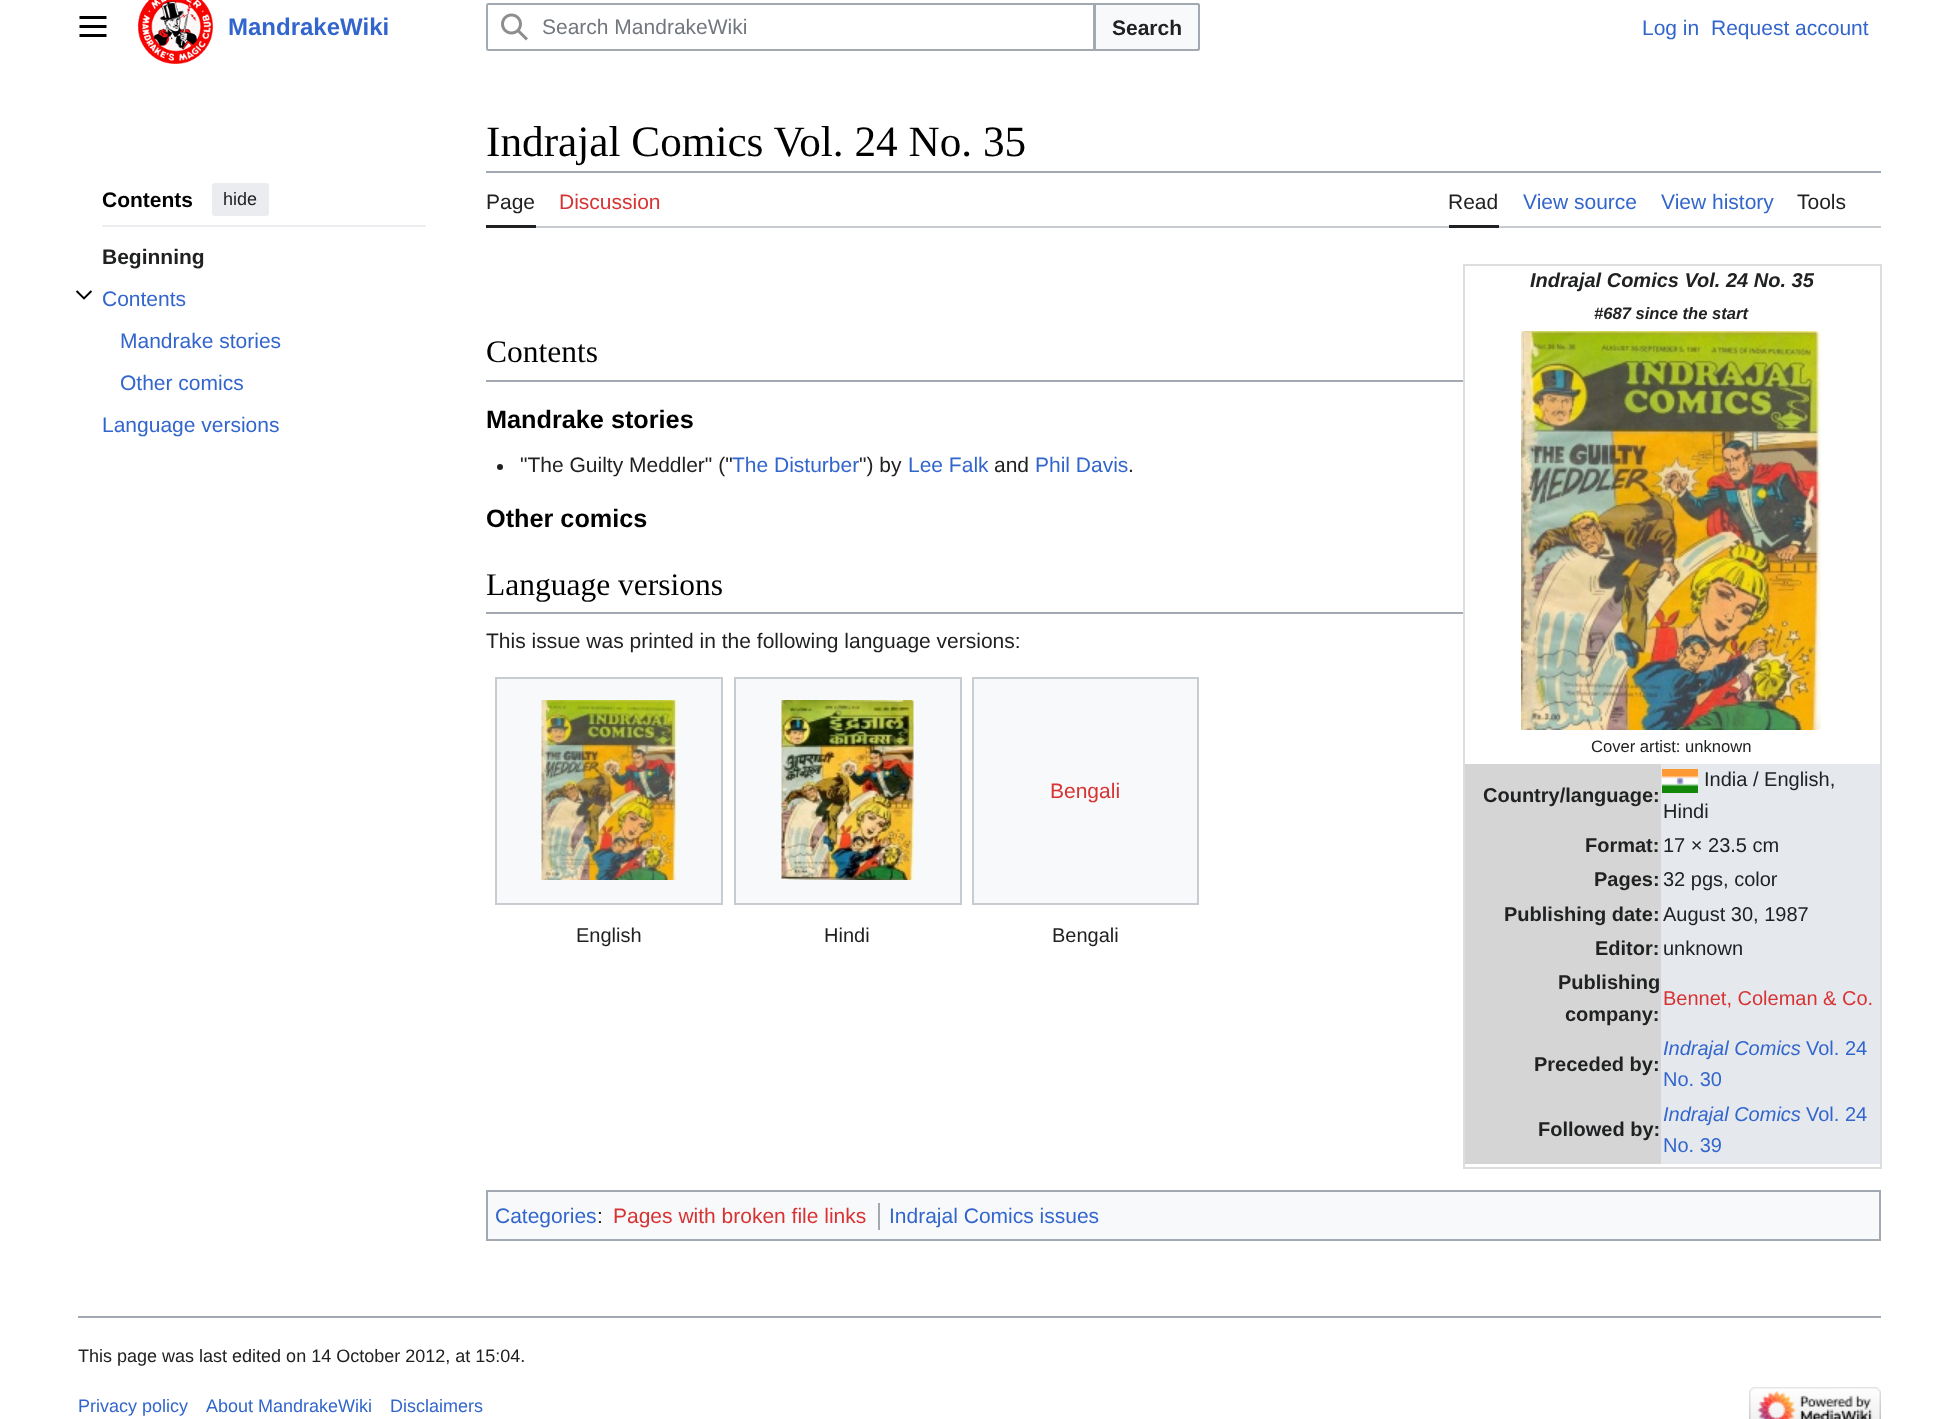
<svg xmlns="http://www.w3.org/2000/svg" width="1958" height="1419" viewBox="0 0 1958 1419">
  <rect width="100%" height="100%" fill="#fff"/>
  <image x="79" y="16" width="28" height="21" href="img/1.png"/>
  <image x="138" y="0" width="75" height="64" href="img/2.png"/>
  <rect x="487" y="4" width="712" height="46" rx="2" fill="none" stroke="#a2a9b1" stroke-width="2"/>
  <path d="M1095 4H1197C1198 4 1199 5 1199 6V48C1199 49 1198 50 1197 50H1095Z" fill="#f8f9fa" stroke="#a2a9b1" stroke-width="2"/>
  <path d="M489 3H1095V51H489C487.5 51 486 49.5 486 48V6C486 4.5 487.5 3 489 3Z" fill="#fff"/>
  <path d="M489 3C487 3 486 4 486 6V48C486 50 487 51 489 51H1095V3ZM488 5V49H1093V5Z" fill="#a2a9b1" fill-rule="evenodd"/>
  <image x="501" y="13" width="27" height="28" href="img/3.png"/>
  <path d="M102 225h324v2H102z" fill="#eaecf0"/>
  <rect x="212" y="183" width="57" height="33" rx="3" fill="#eaecf0"/>
  <image x="76" y="290" width="16" height="10" href="img/4.png"/>
  <path d="M486 171h1395v2H486z" fill="#a2a9b1"/>
  <path d="M536 226h1345v2H536z" fill="#c8ccd1"/>
  <path d="M486 225h50v3H486z" fill="#202122"/>
  <path d="M1449 225h50v3H1449z" fill="#202122"/>
  <path d="M486 380h977v2H486z" fill="#a2a9b1"/>
  <path d="M1463 264h418v2H1463z" fill="#ddd"/>
  <path d="M1880 264h2v905H1880z" fill="#ddd"/>
  <path d="M1463 1167h418v2H1463z" fill="#ddd"/>
  <path d="M1463 264h2v905H1463z" fill="#ddd"/>
  <image x="1521" y="331" width="300" height="399" href="img/5.png"/>
  <path d="M1465 764h196v400H1465z" fill="#d5d5d5"/>
  <path d="M1661 764h219v400H1661z" fill="#e5e9ee"/>
  <image x="1662" y="769" width="36" height="24" href="img/6.png"/>
  <circle cx="500" cy="467" r="3" fill="#202122"/>
  <path d="M486 612h977v2H486z" fill="#a2a9b1"/>
  <path d="M496 678h226v226H496z" fill="#f8f9fa" stroke="#c8ccd1" stroke-width="2"/>
  <image x="541" y="700" width="136" height="180" href="img/7.png"/>
  <path d="M735 678h226v226H735z" fill="#f8f9fa" stroke="#c8ccd1" stroke-width="2"/>
  <image x="781" y="700" width="133" height="180" href="img/8.png"/>
  <path d="M973 678h225v226H973z" fill="#f8f9fa" stroke="#c8ccd1" stroke-width="2"/>
  <path d="M487 1191h1393v49H487z" fill="#f8f9fa" stroke="#a2a9b1" stroke-width="2"/>
  <path d="M878 1203h2v27H878z" fill="#a2a9b1"/>
  <path d="M78 1316h1803v2H78z" fill="#a2a9b1"/>
  <image x="1749" y="1387" width="132" height="32" href="img/9.png"/>
  <text x="228" y="35" font-family="Liberation Sans" font-size="24" font-weight="bold" fill="#36c">MandrakeWiki</text>
  <text x="542" y="34" font-family="Liberation Sans" font-size="21" fill="#72777d">Search MandrakeWiki</text>
  <text x="1112" y="35" font-family="Liberation Sans" font-size="21" font-weight="bold" fill="#202122">Search</text>
  <g font-family="Liberation Sans" font-size="21" fill="#36c">
    <text x="1642" y="35">Log in</text>
    <text x="1711" y="35">Request account</text>
  </g>
  <text x="102" y="207" font-family="Liberation Sans" font-size="21" font-weight="bold" fill="#000">Contents</text>
  <text x="223" y="205" font-family="Liberation Sans" font-size="18" fill="#202122">hide</text>
  <text x="102" y="264" font-family="Liberation Sans" font-size="21" font-weight="bold" fill="#202122">Beginning</text>
  <g font-family="Liberation Sans" font-size="21" fill="#36c">
    <text x="102" y="306">Contents</text>
    <text x="120" y="348">Mandrake stories</text>
    <text x="120" y="390">Other comics</text>
    <text x="102" y="432">Language versions</text>
  </g>
  <text x="486" y="156" font-family="Liberation Serif" font-size="43.25" fill="#000">Indrajal Comics Vol. 24 No. 35</text>
  <text x="486" y="209" font-family="Liberation Sans" font-size="21" fill="#202122">Page</text>
  <text x="559" y="209" font-family="Liberation Sans" font-size="21" fill="#d73333">Discussion</text>
  <text x="1448" y="209" font-family="Liberation Sans" font-size="21" fill="#202122">Read</text>
  <g font-family="Liberation Sans" font-size="21" fill="#36c">
    <text x="1523" y="209">View source</text>
    <text x="1661" y="209">View history</text>
  </g>
  <text x="1797" y="209" font-family="Liberation Sans" font-size="21" fill="#202122">Tools</text>
  <text x="486" y="362" font-family="Liberation Serif" font-size="31.5" fill="#000">Contents</text>
  <text x="1530" y="287" font-family="Liberation Sans" font-size="20" font-weight="bold" font-style="italic" fill="#202122">Indrajal Comics Vol. 24 No. 35</text>
  <text x="1594" y="319" font-family="Liberation Sans" font-size="16.6" font-weight="bold" font-style="italic" fill="#202122">#687 since the start</text>
  <text x="1591" y="752" font-family="Liberation Sans" font-size="16.6" fill="#202122">Cover artist: unknown</text>
  <text x="1483" y="802" font-family="Liberation Sans" font-size="20" font-weight="bold" fill="#202122">Country/language:</text>
  <g font-family="Liberation Sans" font-size="20" fill="#202122">
    <text x="1704" y="786">India / English,</text>
    <text x="1663" y="818">Hindi</text>
  </g>
  <text x="1585" y="852" font-family="Liberation Sans" font-size="20" font-weight="bold" fill="#202122">Format:</text>
  <text x="1663" y="852" font-family="Liberation Sans" font-size="20" fill="#202122">17 × 23.5 cm</text>
  <text x="1594" y="886" font-family="Liberation Sans" font-size="20" font-weight="bold" fill="#202122">Pages:</text>
  <text x="1663" y="886" font-family="Liberation Sans" font-size="20" fill="#202122">32 pgs, color</text>
  <text x="1504" y="921" font-family="Liberation Sans" font-size="20" font-weight="bold" fill="#202122">Publishing date:</text>
  <text x="1663" y="921" font-family="Liberation Sans" font-size="20" fill="#202122">August 30, 1987</text>
  <text x="1595" y="955" font-family="Liberation Sans" font-size="20" font-weight="bold" fill="#202122">Editor:</text>
  <text x="1663" y="955" font-family="Liberation Sans" font-size="20" fill="#202122">unknown</text>
  <g font-family="Liberation Sans" font-size="20" font-weight="bold" fill="#202122">
    <text x="1558" y="989">Publishing</text>
    <text x="1565" y="1021">company:</text>
  </g>
  <text x="1663" y="1005" font-family="Liberation Sans" font-size="20" fill="#d73333">Bennet, Coleman &amp; Co.</text>
  <text x="1534" y="1071" font-family="Liberation Sans" font-size="20" font-weight="bold" fill="#202122">Preceded by:</text>
  <text x="1663" y="1055" font-family="Liberation Sans" font-size="20" font-style="italic" fill="#36c">Indrajal Comics</text>
  <g font-family="Liberation Sans" font-size="20" fill="#36c">
    <text x="1806" y="1055">Vol. 24</text>
    <text x="1663" y="1086">No. 30</text>
  </g>
  <text x="1538" y="1136" font-family="Liberation Sans" font-size="20" font-weight="bold" fill="#202122">Followed by:</text>
  <text x="1663" y="1121" font-family="Liberation Sans" font-size="20" font-style="italic" fill="#36c">Indrajal Comics</text>
  <g font-family="Liberation Sans" font-size="20" fill="#36c">
    <text x="1806" y="1121">Vol. 24</text>
    <text x="1663" y="1152">No. 39</text>
  </g>
  <text x="486" y="428" font-family="Liberation Sans" font-size="25.25" font-weight="bold" fill="#000">Mandrake stories</text>
  <text x="520" y="472" font-family="Liberation Sans" font-size="21" fill="#202122">"The Guilty Meddler" ("</text>
  <text x="732" y="472" font-family="Liberation Sans" font-size="21" fill="#36c">The Disturber</text>
  <text x="859" y="472" font-family="Liberation Sans" font-size="21" fill="#202122">") by</text>
  <text x="908" y="472" font-family="Liberation Sans" font-size="21" fill="#36c">Lee Falk</text>
  <text x="994" y="472" font-family="Liberation Sans" font-size="21" fill="#202122">and</text>
  <text x="1035" y="472" font-family="Liberation Sans" font-size="21" fill="#36c">Phil Davis</text>
  <text x="1128" y="472" font-family="Liberation Sans" font-size="21" fill="#202122">.</text>
  <text x="486" y="527" font-family="Liberation Sans" font-size="25.25" font-weight="bold" fill="#000">Other comics</text>
  <text x="486" y="595" font-family="Liberation Serif" font-size="31.5" fill="#000">Language versions</text>
  <text x="486" y="648" font-family="Liberation Sans" font-size="21" fill="#202122">This issue was printed in the following language versions:</text>
  <g font-family="Liberation Sans" font-size="20" fill="#202122">
    <text x="576" y="942">English</text>
    <text x="824" y="942">Hindi</text>
  </g>
  <text x="1050" y="798" font-family="Liberation Sans" font-size="21" fill="#d73333">Bengali</text>
  <text x="1052" y="942" font-family="Liberation Sans" font-size="20" fill="#202122">Bengali</text>
  <text x="495" y="1223" font-family="Liberation Sans" font-size="21" fill="#36c">Categories</text>
  <text x="597" y="1223" font-family="Liberation Sans" font-size="21" fill="#202122">:</text>
  <text x="613" y="1223" font-family="Liberation Sans" font-size="21" fill="#d73333">Pages with broken file links</text>
  <text x="889" y="1223" font-family="Liberation Sans" font-size="21" fill="#36c">Indrajal Comics issues</text>
  <text x="78" y="1362" font-family="Liberation Sans" font-size="18" fill="#202122">This page was last edited on 14 October 2012, at 15:04.</text>
  <g font-family="Liberation Sans" font-size="18" fill="#36c">
    <text x="78" y="1412">Privacy policy</text>
    <text x="206" y="1412">About MandrakeWiki</text>
    <text x="390" y="1412">Disclaimers</text>
  </g>
</svg>
